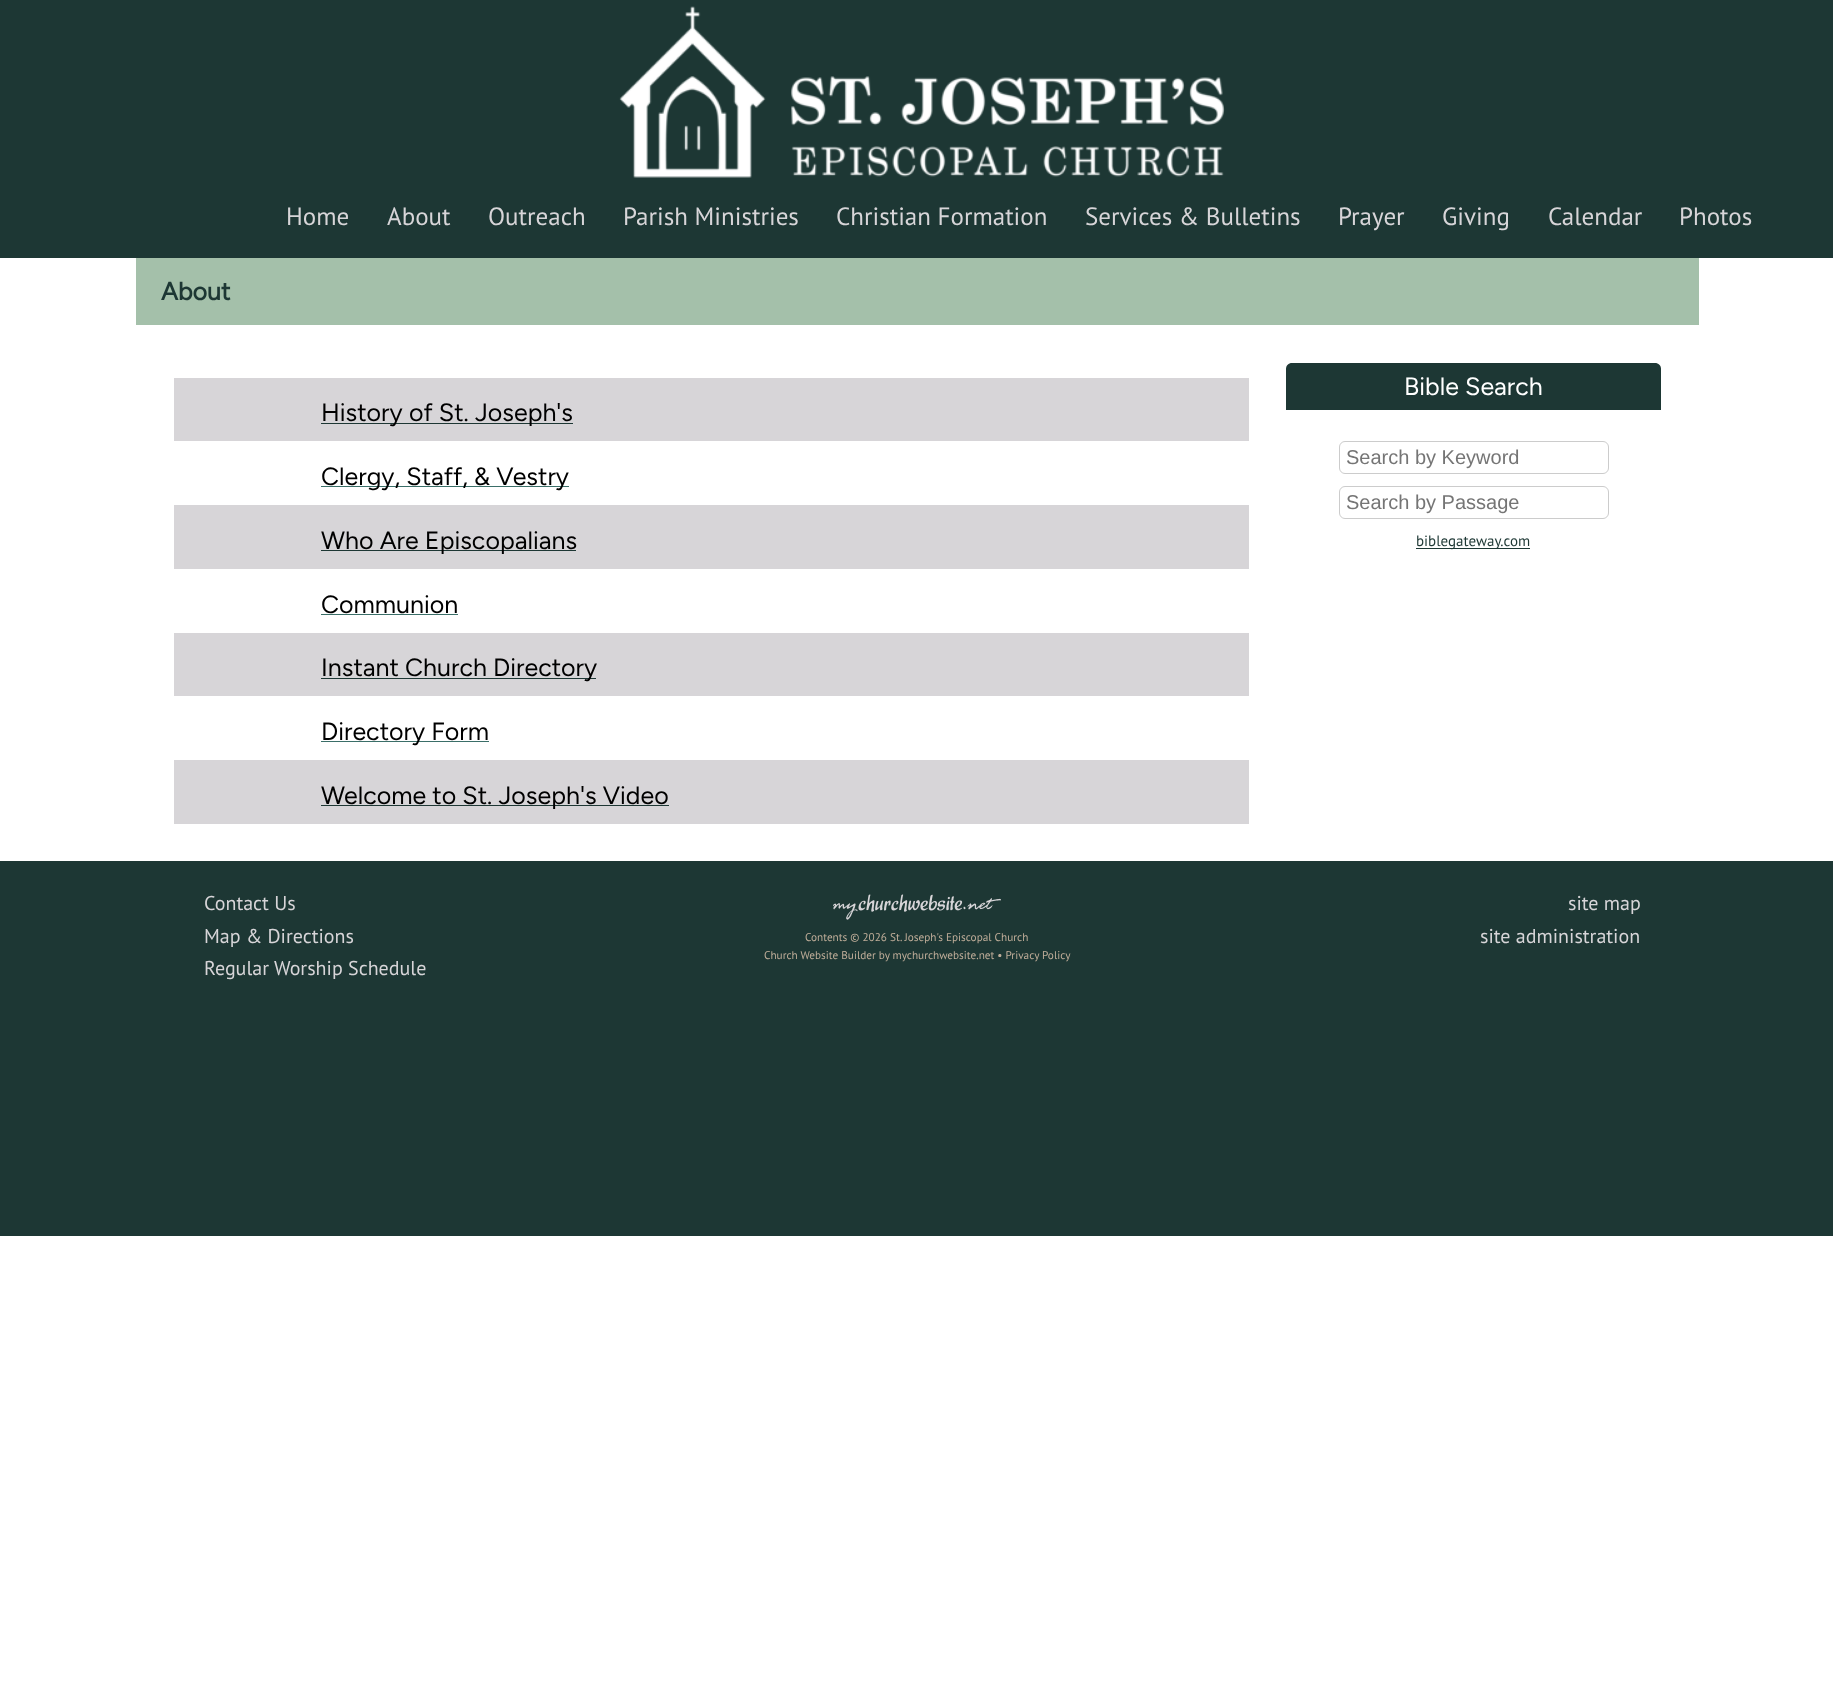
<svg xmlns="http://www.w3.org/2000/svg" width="1833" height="1688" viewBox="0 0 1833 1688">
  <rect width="100%" height="100%" fill="#fff"/>
  <path d="M0 0h1833v258H0z" fill="#1d3734"/>
  <image x="619" y="6" width="606" height="172" href="img/1.png"/>
  <path d="M136 258h1563v67H136z" fill="#a4c0aa"/>
  <path d="M174 378h1075v63H174z" fill="#d7d5d8"/>
  <path d="M321 423h252v1H321z" fill="#1d3734"/>
  <path d="M321 486h248v1H321z" fill="#3a6e68"/>
  <path d="M174 505h1075v64H174z" fill="#d7d5d8"/>
  <path d="M321 550h255v1H321z" fill="#1d3734"/>
  <path d="M321 614h137v1H321z" fill="#3a6e68"/>
  <path d="M174 633h1075v63H174z" fill="#d7d5d8"/>
  <path d="M321 678h275v1H321z" fill="#1d3734"/>
  <path d="M321 741h168v1H321z" fill="#3a6e68"/>
  <path d="M174 760h1075v64H174z" fill="#d7d5d8"/>
  <path d="M321 805h348v1H321z" fill="#1d3734"/>
  <path d="M1292 363H1655C1658.5 363 1661 365.5 1661 369V410H1286V369C1286 365.5 1288.5 363 1292 363Z" fill="#1d3734"/>
  <rect x="1339.5" y="441.5" width="269" height="32" rx="5.5" fill="none" stroke="#ccc"/>
  <rect x="1339.5" y="486.5" width="269" height="32" rx="5.5" fill="none" stroke="#ccc"/>
  <path d="M1416 548h114v1H1416z" fill="#1d3734"/>
  <path d="M0 861h1833v375H0z" fill="#1d3734"/>
  <image x="833" y="894" width="168" height="26" href="img/2.png"/>
  <g font-family="PT Sans" font-size="25" fill="#d7d5d8">
    <text x="286" y="225">Home</text>
    <text x="387" y="225">About</text>
    <text x="488" y="225">Outreach</text>
    <text x="623" y="225">Parish Ministries</text>
    <text x="836" y="225">Christian Formation</text>
    <text x="1085" y="225">Services &amp; Bulletins</text>
    <text x="1338" y="225">Prayer</text>
    <text x="1442" y="225">Giving</text>
    <text x="1548" y="225">Calendar</text>
    <text x="1679" y="225">Photos</text>
  </g>
  <text x="161" y="300" font-family="Figtree" font-size="25" font-weight="bold" fill="#1d3734">About</text>
  <g font-family="Figtree" font-size="25" font-weight="300" fill="#000">
    <text x="321" y="421">History of St. Joseph's</text>
    <text x="321" y="485">Clergy, Staff, &amp; Vestry</text>
    <text x="321" y="549">Who Are Episcopalians</text>
    <text x="321" y="613">Communion</text>
    <text x="321" y="676">Instant Church Directory</text>
    <text x="321" y="740">Directory Form</text>
    <text x="321" y="804">Welcome to St. Joseph's Video</text>
  </g>
  <text x="1404" y="395" font-family="Figtree" font-size="25" font-weight="300" fill="#fff">Bible Search</text>
  <g font-family="Liberation Sans" font-size="20" fill="#757575">
    <text x="1346" y="464">Search by Keyword</text>
    <text x="1346" y="509">Search by Passage</text>
  </g>
  <text x="1416" y="546" font-family="PT Sans" font-size="15" fill="#1d3734">biblegateway.com</text>
  <g font-family="PT Sans" font-size="20" fill="#d7d5d8">
    <text x="204" y="910">Contact Us</text>
    <text x="204" y="943">Map &amp; Directions</text>
    <text x="204" y="975">Regular Worship Schedule</text>
    <text x="1568" y="910">site map</text>
    <text x="1480" y="943">site administration</text>
  </g>
  <g font-family="PT Sans" font-size="11.25" fill="#bfad99">
    <text x="805" y="941">Contents © 2026 St. Joseph's Episcopal Church</text>
    <text x="764" y="959">Church Website Builder by mychurchwebsite.net • Privacy Policy</text>
  </g>
</svg>
